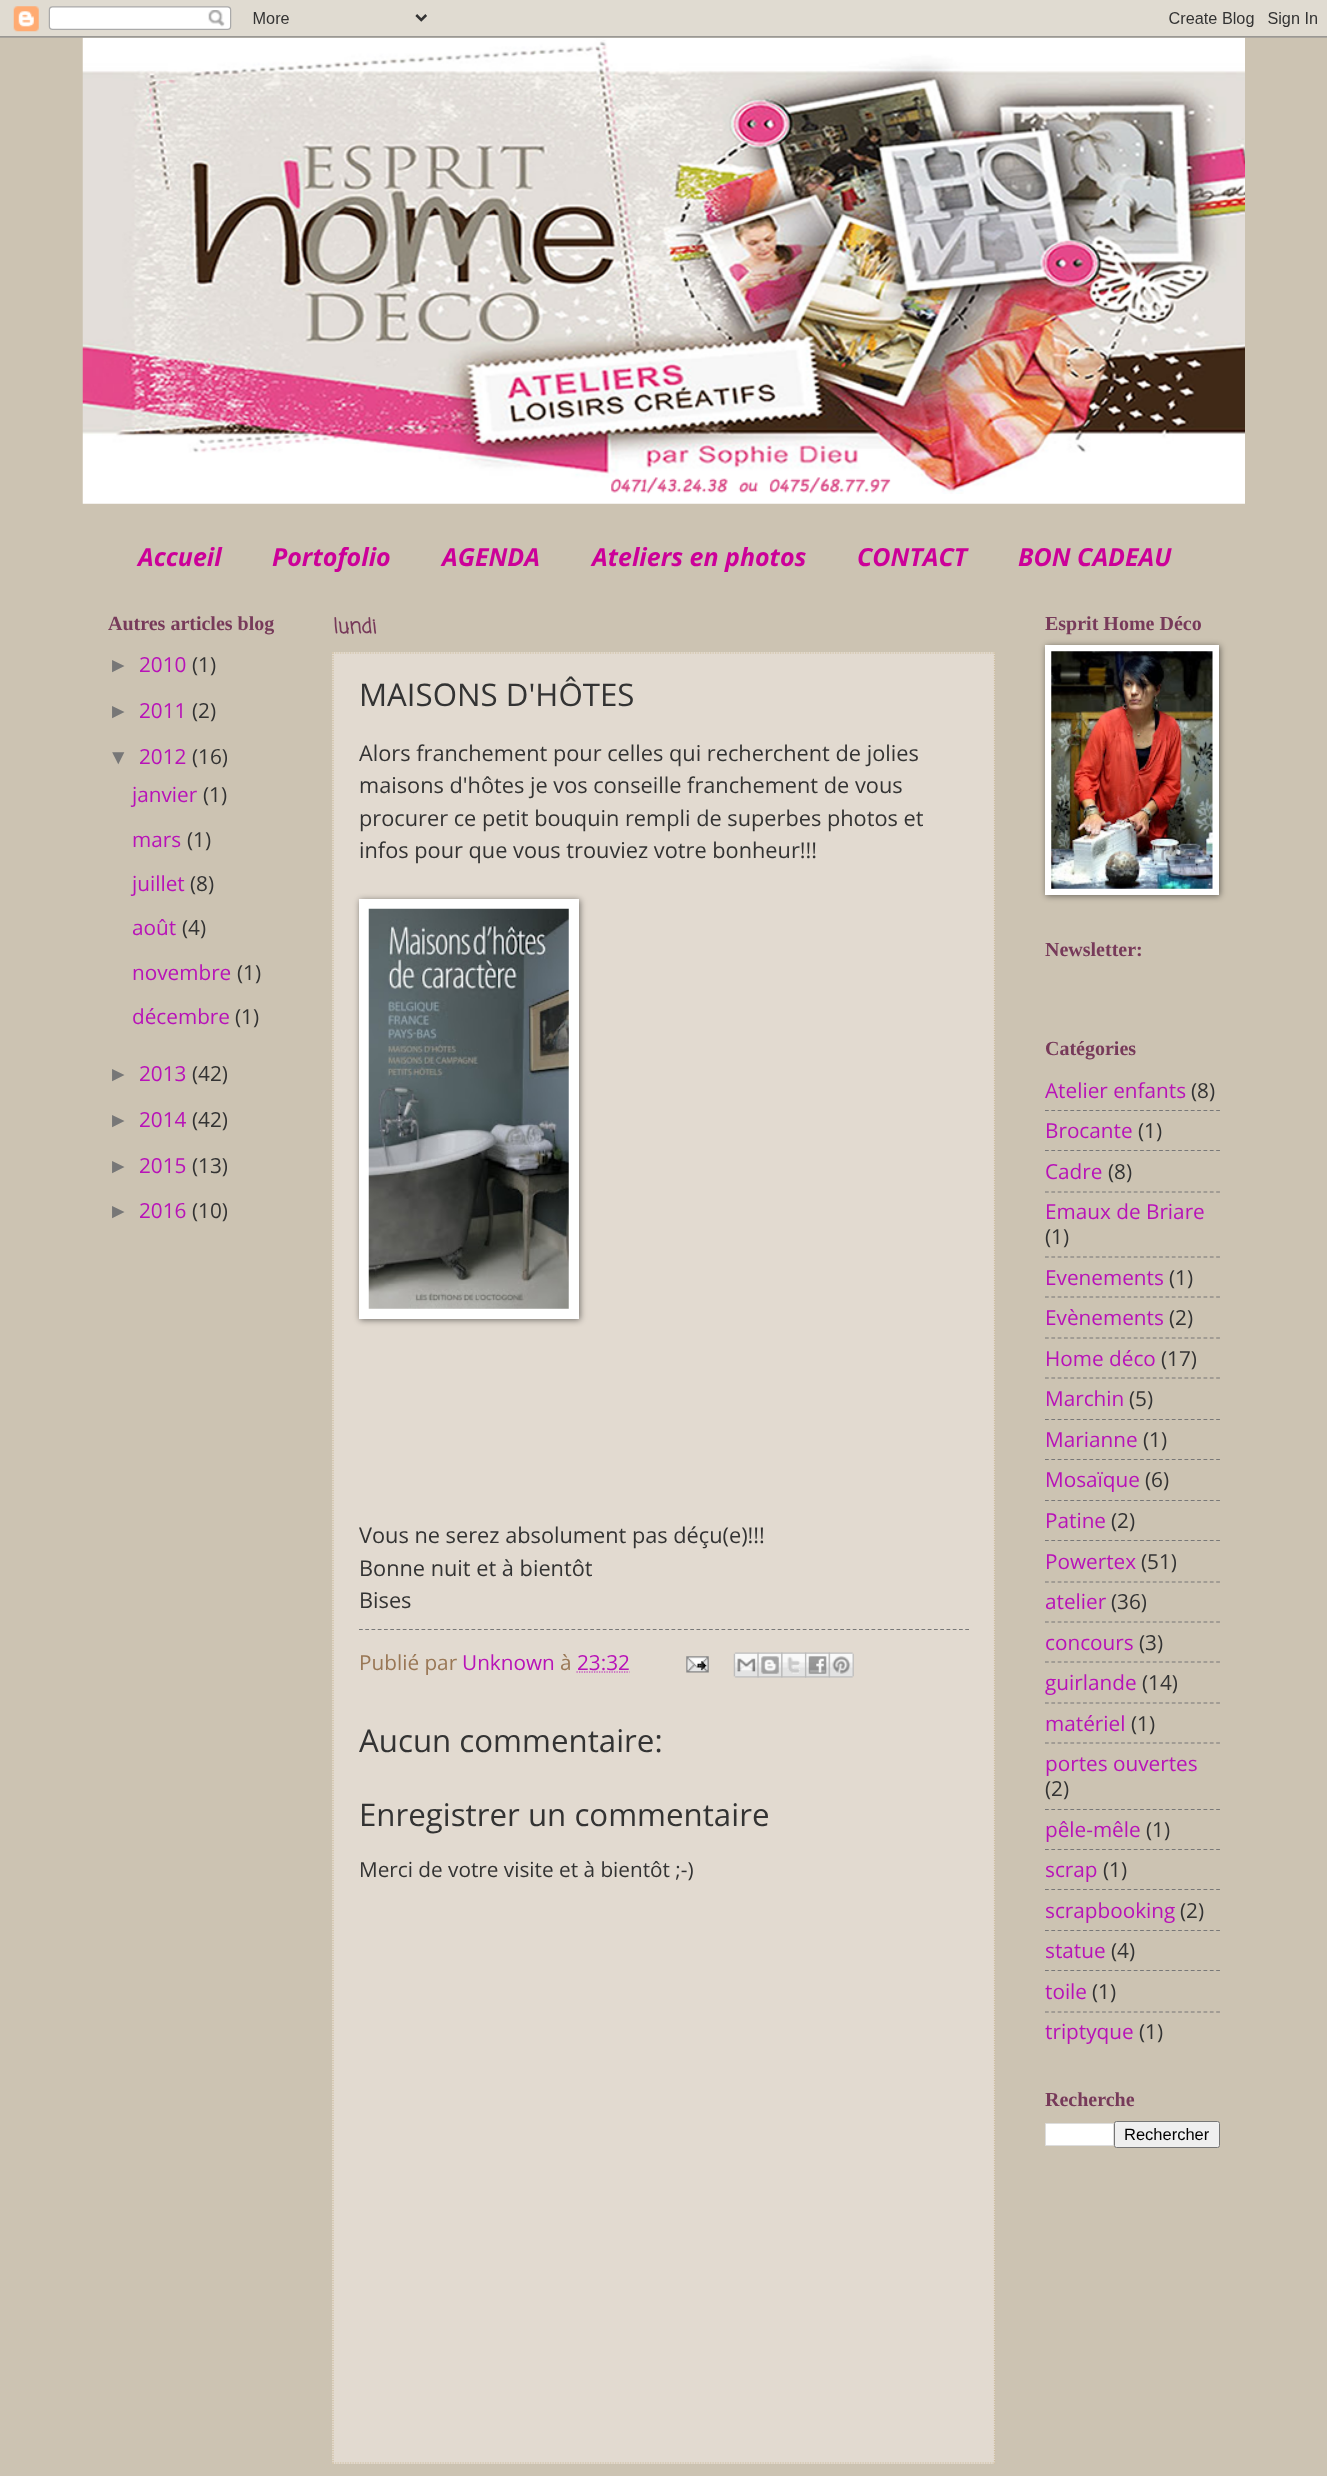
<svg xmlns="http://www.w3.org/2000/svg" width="1327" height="2476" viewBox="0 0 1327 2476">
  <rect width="100%" height="100%" fill="#ccc3b2"/>
  <image x="82" y="37" width="1163" height="467" href="img/2.png"/>
  <image x="0" y="0" width="1327" height="38" href="img/1.png"/>
  <path d="M332 652h663v1812H332z" fill="#e2dad0"/>
  <path d="M332.5 653H995" fill="none" stroke="#cb9" stroke-width="1.2" stroke-dasharray="1.25 1.25"/>
  <path d="M994.5 652.5V2464" fill="none" stroke="#cb9" stroke-width="1.2" stroke-dasharray="1.25 1.25"/>
  <path d="M332.5 2463H995" fill="none" stroke="#cb9" stroke-width="1.2" stroke-dasharray="1.25 1.25"/>
  <path d="M333 652.5V2464" fill="none" stroke="#cb9" stroke-width="1.2" stroke-dasharray="1.25 1.25"/>
  <path d="M360 900h220v420H360z" fill="#00000080" filter="blur(3px)"/>
  <path d="M359 899h220v420H359z" fill="#fff"/>
  <image x="368" y="908" width="201" height="401" href="img/3.png"/>
  <path d="M359 1629.5H969" fill="none" stroke="#777" stroke-width="1.2" stroke-dasharray="3.75 2.5"/>
  <path d="M576.5 1672H629.5" fill="none" stroke="#b812b8" stroke-width="1.2" stroke-dasharray="1.25 1.25"/>
  <image x="686" y="1656" width="23" height="17" href="img/4.png"/>
  <image x="733" y="1652" width="26" height="26" href="img/5.png"/>
  <image x="757" y="1652" width="26" height="26" href="img/6.png"/>
  <image x="781" y="1652" width="26" height="26" href="img/7.png"/>
  <image x="805" y="1652" width="25" height="26" href="img/8.png"/>
  <image x="828" y="1652" width="26" height="26" href="img/9.png"/>
  <path d="M1046 646h174v250H1046z" fill="#00000080" filter="blur(3px)"/>
  <path d="M1045 645h174v250H1045z" fill="#fff"/>
  <image x="1051" y="651" width="162" height="238" href="img/10.png"/>
  <path d="M1045 1110.5H1220" fill="none" stroke="#777" stroke-width="1.2" stroke-dasharray="3.75 2.59"/>
  <path d="M1045 1150.5H1220" fill="none" stroke="#777" stroke-width="1.2" stroke-dasharray="3.75 2.59"/>
  <path d="M1045 1192H1220" fill="none" stroke="#777" stroke-width="1.2" stroke-dasharray="3.75 2.59"/>
  <path d="M1045 1257H1220" fill="none" stroke="#777" stroke-width="1.2" stroke-dasharray="3.75 2.59"/>
  <path d="M1045 1297H1220" fill="none" stroke="#777" stroke-width="1.2" stroke-dasharray="3.75 2.59"/>
  <path d="M1045 1338H1220" fill="none" stroke="#777" stroke-width="1.2" stroke-dasharray="3.75 2.59"/>
  <path d="M1045 1378H1220" fill="none" stroke="#777" stroke-width="1.2" stroke-dasharray="3.75 2.59"/>
  <path d="M1045 1419.5H1220" fill="none" stroke="#777" stroke-width="1.2" stroke-dasharray="3.75 2.59"/>
  <path d="M1045 1459.5H1220" fill="none" stroke="#777" stroke-width="1.2" stroke-dasharray="3.75 2.59"/>
  <path d="M1045 1500.5H1220" fill="none" stroke="#777" stroke-width="1.2" stroke-dasharray="3.75 2.59"/>
  <path d="M1045 1540.5H1220" fill="none" stroke="#777" stroke-width="1.2" stroke-dasharray="3.75 2.59"/>
  <path d="M1045 1582H1220" fill="none" stroke="#777" stroke-width="1.2" stroke-dasharray="3.75 2.59"/>
  <path d="M1045 1622H1220" fill="none" stroke="#777" stroke-width="1.2" stroke-dasharray="3.75 2.59"/>
  <path d="M1045 1662H1220" fill="none" stroke="#777" stroke-width="1.2" stroke-dasharray="3.75 2.59"/>
  <path d="M1045 1703H1220" fill="none" stroke="#777" stroke-width="1.2" stroke-dasharray="3.75 2.59"/>
  <path d="M1045 1743H1220" fill="none" stroke="#777" stroke-width="1.2" stroke-dasharray="3.75 2.59"/>
  <path d="M1045 1809.5H1220" fill="none" stroke="#777" stroke-width="1.2" stroke-dasharray="3.75 2.59"/>
  <path d="M1045 1849.5H1220" fill="none" stroke="#777" stroke-width="1.2" stroke-dasharray="3.75 2.59"/>
  <path d="M1045 1889.5H1220" fill="none" stroke="#777" stroke-width="1.2" stroke-dasharray="3.75 2.59"/>
  <path d="M1045 1930.5H1220" fill="none" stroke="#777" stroke-width="1.2" stroke-dasharray="3.75 2.59"/>
  <path d="M1045 1970.5H1220" fill="none" stroke="#777" stroke-width="1.2" stroke-dasharray="3.75 2.59"/>
  <path d="M1045 2012H1220" fill="none" stroke="#777" stroke-width="1.2" stroke-dasharray="3.75 2.59"/>
  <path d="M1045.5 2123.5h68v22H1045.5z" fill="#fff" stroke="#ddd"/>
  <rect x="1114.5" y="2121.5" width="105" height="26" rx="2" fill="#efefef" stroke="#767676"/>
  <g font-family="Open Sans" font-size="25" font-weight="bold" font-style="italic" fill="#c09">
    <text x="138" y="566">Accueil</text>
    <text x="272" y="566">Portofolio</text>
    <text x="442" y="566">AGENDA</text>
    <text x="592" y="566">Ateliers en photos</text>
    <text x="857" y="566">CONTACT</text>
    <text x="1018" y="566">BON CADEAU</text>
  </g>
  <text x="108" y="630" font-family="Liberation Serif" font-size="20" font-weight="bold" fill="#773a5a">Autres articles blog</text>
  <text x="108" y="672" font-family="Liberation Sans" font-size="20.75" fill="#777">►</text>
  <text x="139" y="672" font-family="Open Sans" font-size="20.75" fill="#b812b8">2010</text>
  <text x="192" y="672" font-family="Open Sans" font-size="20.75" fill="#333">(1)</text>
  <text x="108" y="718" font-family="Liberation Sans" font-size="20.75" fill="#777">►</text>
  <text x="139" y="718" font-family="Open Sans" font-size="20.75" fill="#b812b8">2011</text>
  <text x="192" y="718" font-family="Open Sans" font-size="20.75" fill="#333">(2)</text>
  <text x="108" y="764" font-family="Liberation Sans" font-size="20.75" fill="#777">▼</text>
  <text x="139" y="764" font-family="Open Sans" font-size="20.75" fill="#b812b8">2012</text>
  <text x="192" y="764" font-family="Open Sans" font-size="20.75" fill="#333">(16)</text>
  <text x="132" y="802" font-family="Open Sans" font-size="20.75" fill="#b812b8">janvier</text>
  <text x="203" y="802" font-family="Open Sans" font-size="20.75" fill="#333">(1)</text>
  <text x="132" y="847" font-family="Open Sans" font-size="20.75" fill="#b812b8">mars</text>
  <text x="187" y="847" font-family="Open Sans" font-size="20.75" fill="#333">(1)</text>
  <text x="132" y="891" font-family="Open Sans" font-size="20.75" fill="#b812b8">juillet</text>
  <text x="190" y="891" font-family="Open Sans" font-size="20.75" fill="#333">(8)</text>
  <text x="132" y="935" font-family="Open Sans" font-size="20.75" fill="#b812b8">août</text>
  <text x="182" y="935" font-family="Open Sans" font-size="20.75" fill="#333">(4)</text>
  <text x="132" y="980" font-family="Open Sans" font-size="20.75" fill="#b812b8">novembre</text>
  <text x="237" y="980" font-family="Open Sans" font-size="20.75" fill="#333">(1)</text>
  <text x="132" y="1024" font-family="Open Sans" font-size="20.75" fill="#b812b8">décembre</text>
  <text x="235" y="1024" font-family="Open Sans" font-size="20.75" fill="#333">(1)</text>
  <text x="108" y="1081" font-family="Liberation Sans" font-size="20.75" fill="#777">►</text>
  <text x="139" y="1081" font-family="Open Sans" font-size="20.75" fill="#b812b8">2013</text>
  <text x="192" y="1081" font-family="Open Sans" font-size="20.75" fill="#333">(42)</text>
  <text x="108" y="1127" font-family="Liberation Sans" font-size="20.75" fill="#777">►</text>
  <text x="139" y="1127" font-family="Open Sans" font-size="20.75" fill="#b812b8">2014</text>
  <text x="192" y="1127" font-family="Open Sans" font-size="20.75" fill="#333">(42)</text>
  <text x="108" y="1173" font-family="Liberation Sans" font-size="20.75" fill="#777">►</text>
  <text x="139" y="1173" font-family="Open Sans" font-size="20.75" fill="#b812b8">2015</text>
  <text x="192" y="1173" font-family="Open Sans" font-size="20.75" fill="#333">(13)</text>
  <text x="108" y="1218" font-family="Liberation Sans" font-size="20.75" fill="#777">►</text>
  <text x="139" y="1218" font-family="Open Sans" font-size="20.75" fill="#b812b8">2016</text>
  <text x="192" y="1218" font-family="Open Sans" font-size="20.75" fill="#333">(10)</text>
  <text x="333" y="633" font-family="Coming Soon" font-size="20" font-weight="bold" fill="#773a5a">lundi</text>
  <text x="359" y="706" font-family="Open Sans" font-size="31.25" fill="#333">MAISONS D'HÔTES</text>
  <g font-family="Open Sans" font-size="21.75" fill="#333">
    <text x="359" y="761">Alors franchement pour celles qui recherchent de jolies</text>
    <text x="359" y="793">maisons d'hôtes je vos conseille franchement de vous</text>
    <text x="359" y="826">procurer ce petit bouquin rempli de superbes photos et</text>
    <text x="359" y="858">infos pour que vous trouviez votre bonheur!!!</text>
    <text x="359" y="1543">Vous ne serez absolument pas déçu(e)!!!</text>
    <text x="359" y="1576">Bonne nuit et à bientôt</text>
    <text x="359" y="1608">Bises</text>
  </g>
  <text x="359" y="1670" font-family="Open Sans" font-size="20.75" fill="#975">Publié par</text>
  <text x="462" y="1670" font-family="Open Sans" font-size="20.75" fill="#b812b8">Unknown</text>
  <text x="560" y="1670" font-family="Open Sans" font-size="20.75" fill="#975">à</text>
  <text x="577" y="1670" font-family="Open Sans" font-size="20.75" fill="#b812b8">23:32</text>
  <g font-family="Open Sans" font-size="31.25" fill="#333">
    <text x="359" y="1752">Aucun commentaire:</text>
    <text x="359" y="1826">Enregistrer un commentaire</text>
  </g>
  <text x="359" y="1877" font-family="Open Sans" font-size="20.75" fill="#333">Merci de votre visite et à bientôt ;-)</text>
  <g font-family="Liberation Serif" font-size="20" font-weight="bold" fill="#773a5a">
    <text x="1045" y="630">Esprit Home Déco</text>
    <text x="1045" y="956">Newsletter:</text>
    <text x="1045" y="1055">Catégories</text>
  </g>
  <text x="1045" y="1098" font-family="Open Sans" font-size="20.75" fill="#b812b8">Atelier enfants</text>
  <text x="1191" y="1098" font-family="Open Sans" font-size="20.75" fill="#333">(8)</text>
  <text x="1045" y="1138" font-family="Open Sans" font-size="20.75" fill="#b812b8">Brocante</text>
  <text x="1138" y="1138" font-family="Open Sans" font-size="20.75" fill="#333">(1)</text>
  <text x="1045" y="1179" font-family="Open Sans" font-size="20.75" fill="#b812b8">Cadre</text>
  <text x="1108" y="1179" font-family="Open Sans" font-size="20.75" fill="#333">(8)</text>
  <text x="1045" y="1219" font-family="Open Sans" font-size="20.75" fill="#b812b8">Emaux de Briare</text>
  <text x="1045" y="1244" font-family="Open Sans" font-size="20.75" fill="#333">(1)</text>
  <text x="1045" y="1285" font-family="Open Sans" font-size="20.75" fill="#b812b8">Evenements</text>
  <text x="1169" y="1285" font-family="Open Sans" font-size="20.75" fill="#333">(1)</text>
  <text x="1045" y="1325" font-family="Open Sans" font-size="20.75" fill="#b812b8">Evènements</text>
  <text x="1169" y="1325" font-family="Open Sans" font-size="20.75" fill="#333">(2)</text>
  <text x="1045" y="1366" font-family="Open Sans" font-size="20.75" fill="#b812b8">Home déco</text>
  <text x="1161" y="1366" font-family="Open Sans" font-size="20.75" fill="#333">(17)</text>
  <text x="1045" y="1406" font-family="Open Sans" font-size="20.75" fill="#b812b8">Marchin</text>
  <text x="1129" y="1406" font-family="Open Sans" font-size="20.75" fill="#333">(5)</text>
  <text x="1045" y="1447" font-family="Open Sans" font-size="20.75" fill="#b812b8">Marianne</text>
  <text x="1143" y="1447" font-family="Open Sans" font-size="20.75" fill="#333">(1)</text>
  <text x="1045" y="1487" font-family="Open Sans" font-size="20.75" fill="#b812b8">Mosaïque</text>
  <text x="1145" y="1487" font-family="Open Sans" font-size="20.75" fill="#333">(6)</text>
  <text x="1045" y="1528" font-family="Open Sans" font-size="20.75" fill="#b812b8">Patine</text>
  <text x="1111" y="1528" font-family="Open Sans" font-size="20.75" fill="#333">(2)</text>
  <text x="1045" y="1569" font-family="Open Sans" font-size="20.75" fill="#b812b8">Powertex</text>
  <text x="1141" y="1569" font-family="Open Sans" font-size="20.75" fill="#333">(51)</text>
  <text x="1045" y="1609" font-family="Open Sans" font-size="20.75" fill="#b812b8">atelier</text>
  <text x="1111" y="1609" font-family="Open Sans" font-size="20.75" fill="#333">(36)</text>
  <text x="1045" y="1650" font-family="Open Sans" font-size="20.75" fill="#b812b8">concours</text>
  <text x="1139" y="1650" font-family="Open Sans" font-size="20.75" fill="#333">(3)</text>
  <text x="1045" y="1690" font-family="Open Sans" font-size="20.75" fill="#b812b8">guirlande</text>
  <text x="1142" y="1690" font-family="Open Sans" font-size="20.75" fill="#333">(14)</text>
  <text x="1045" y="1731" font-family="Open Sans" font-size="20.75" fill="#b812b8">matériel</text>
  <text x="1131" y="1731" font-family="Open Sans" font-size="20.75" fill="#333">(1)</text>
  <text x="1045" y="1771" font-family="Open Sans" font-size="20.75" fill="#b812b8">portes ouvertes</text>
  <text x="1045" y="1796" font-family="Open Sans" font-size="20.75" fill="#333">(2)</text>
  <text x="1045" y="1837" font-family="Open Sans" font-size="20.75" fill="#b812b8">pêle-mêle</text>
  <text x="1146" y="1837" font-family="Open Sans" font-size="20.75" fill="#333">(1)</text>
  <text x="1045" y="1877" font-family="Open Sans" font-size="20.75" fill="#b812b8">scrap</text>
  <text x="1103" y="1877" font-family="Open Sans" font-size="20.75" fill="#333">(1)</text>
  <text x="1045" y="1918" font-family="Open Sans" font-size="20.75" fill="#b812b8">scrapbooking</text>
  <text x="1180" y="1918" font-family="Open Sans" font-size="20.75" fill="#333">(2)</text>
  <text x="1045" y="1958" font-family="Open Sans" font-size="20.75" fill="#b812b8">statue</text>
  <text x="1111" y="1958" font-family="Open Sans" font-size="20.75" fill="#333">(4)</text>
  <text x="1045" y="1999" font-family="Open Sans" font-size="20.75" fill="#b812b8">toile</text>
  <text x="1092" y="1999" font-family="Open Sans" font-size="20.75" fill="#333">(1)</text>
  <text x="1045" y="2039" font-family="Open Sans" font-size="20.75" fill="#b812b8">triptyque</text>
  <text x="1139" y="2039" font-family="Open Sans" font-size="20.75" fill="#333">(1)</text>
  <text x="1045" y="2106" font-family="Liberation Serif" font-size="20" font-weight="bold" fill="#773a5a">Recherche</text>
  <text x="1124" y="2140" font-family="Liberation Sans" font-size="16.5" fill="#000">Rechercher</text>
</svg>
